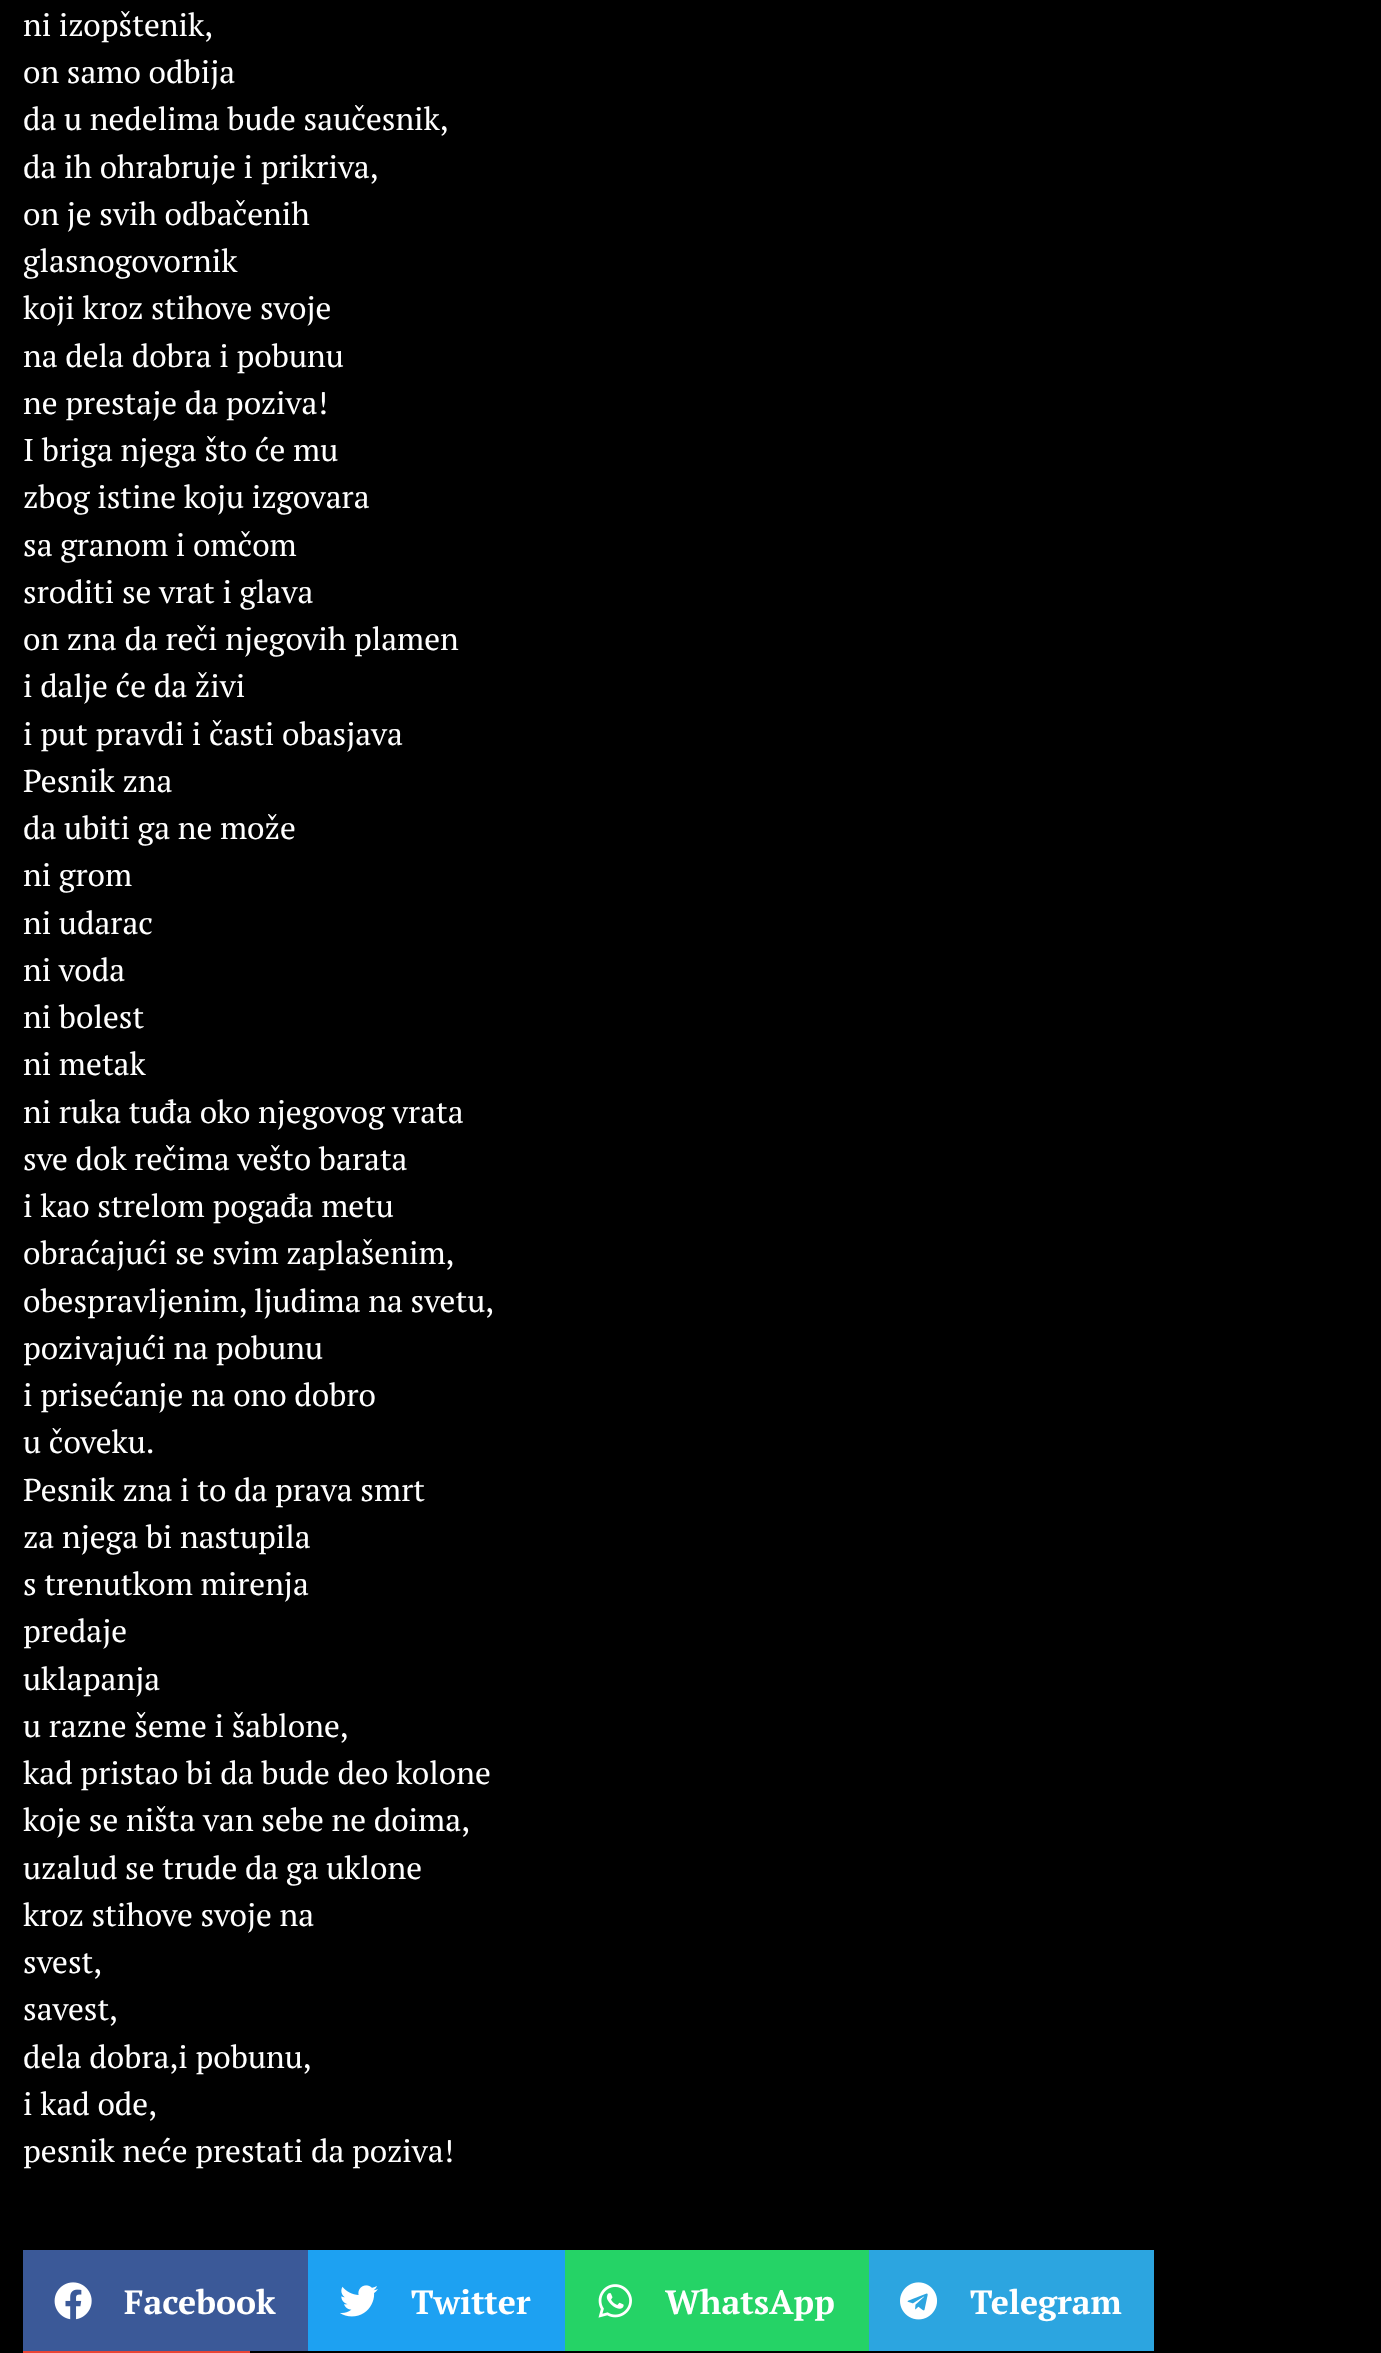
<svg xmlns="http://www.w3.org/2000/svg" width="1381" height="2353" viewBox="0 0 1381 2353">
  <rect width="100%" height="100%" fill="#000"/>
  <path d="M23 2250h285v101H23z" fill="#3b5998"/>
  <image x="54" y="2282" width="38" height="38" href="img/1.png"/>
  <path d="M308 2250h257v101H308z" fill="#1da1f2"/>
  <image x="340" y="2285" width="38" height="32" href="img/2.png"/>
  <path d="M565 2250h304v101H565z" fill="#25d366"/>
  <image x="598" y="2284" width="34" height="34" href="img/3.png"/>
  <path d="M869 2250h285v101H869z" fill="#2ca5e0"/>
  <image x="900" y="2282" width="38" height="38" href="img/4.png"/>
  <path d="M23 2351h227v2H23z" fill="#ea4335"/>
  <g font-family="PT Serif" font-size="31.5" fill="#fff">
    <text x="23" y="36">ni izopštenik,</text>
    <text x="23" y="83">on samo odbija</text>
    <text x="23" y="130">da u nedelima bude saučesnik,</text>
    <text x="23" y="178">da ih ohrabruje i prikriva,</text>
    <text x="23" y="225">on je svih odbačenih</text>
    <text x="23" y="272">glasnogovornik</text>
    <text x="23" y="319">koji kroz stihove svoje</text>
    <text x="23" y="367">na dela dobra i pobunu</text>
    <text x="23" y="414">ne prestaje da poziva!</text>
    <text x="23" y="461">I briga njega što će mu</text>
    <text x="23" y="508">zbog istine koju izgovara</text>
    <text x="23" y="556">sa granom i omčom</text>
    <text x="23" y="603">sroditi se vrat i glava</text>
    <text x="23" y="650">on zna da reči njegovih plamen</text>
    <text x="23" y="697">i dalje će da živi</text>
    <text x="23" y="745">i put pravdi i časti obasjava</text>
    <text x="23" y="792">Pesnik zna</text>
    <text x="23" y="839">da ubiti ga ne može</text>
    <text x="23" y="886">ni grom</text>
    <text x="23" y="934">ni udarac</text>
    <text x="23" y="981">ni voda</text>
    <text x="23" y="1028">ni bolest</text>
    <text x="23" y="1075">ni metak</text>
    <text x="23" y="1123">ni ruka tuđa oko njegovog vrata</text>
    <text x="23" y="1170">sve dok rečima vešto barata</text>
    <text x="23" y="1217">i kao strelom pogađa metu</text>
    <text x="23" y="1264">obraćajući se svim zaplašenim,</text>
    <text x="23" y="1312">obespravljenim, ljudima na svetu,</text>
    <text x="23" y="1359">pozivajući na pobunu</text>
    <text x="23" y="1406">i prisećanje na ono dobro</text>
    <text x="23" y="1453">u čoveku.</text>
    <text x="23" y="1501">Pesnik zna i to da prava smrt</text>
    <text x="23" y="1548">za njega bi nastupila</text>
    <text x="23" y="1595">s trenutkom mirenja</text>
    <text x="23" y="1642">predaje</text>
    <text x="23" y="1690">uklapanja</text>
    <text x="23" y="1737">u razne šeme i šablone,</text>
    <text x="23" y="1784">kad pristao bi da bude deo kolone</text>
    <text x="23" y="1831">koje se ništa van sebe ne doima,</text>
    <text x="23" y="1879">uzalud se trude da ga uklone</text>
    <text x="23" y="1926">kroz stihove svoje na</text>
    <text x="23" y="1973">svest,</text>
    <text x="23" y="2020">savest,</text>
    <text x="23" y="2068">dela dobra,i pobunu,</text>
    <text x="23" y="2115">i kad ode,</text>
    <text x="23" y="2162">pesnik neće prestati da poziva!</text>
  </g>
  <g font-family="PT Serif" font-size="33.75" font-weight="bold" fill="#fff">
    <text x="124" y="2314">Facebook</text>
    <text x="411" y="2314">Twitter</text>
    <text x="665" y="2314">WhatsApp</text>
    <text x="970" y="2314">Telegram</text>
  </g>
</svg>
